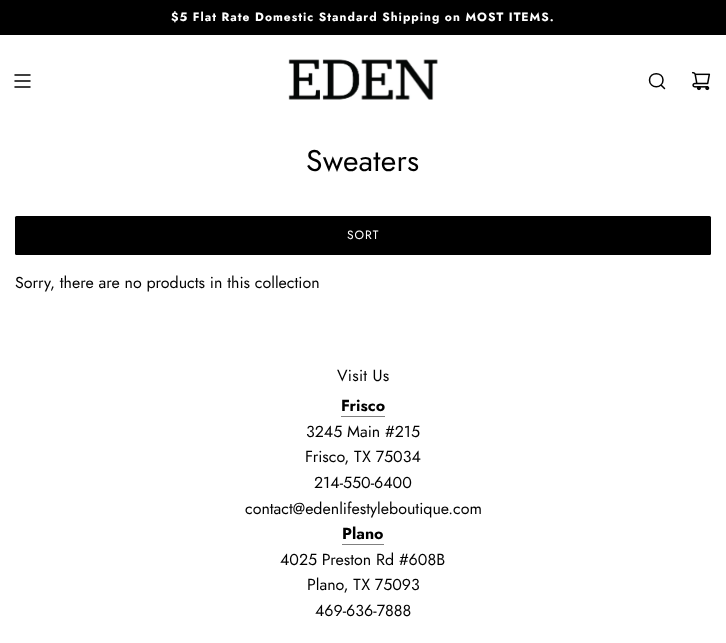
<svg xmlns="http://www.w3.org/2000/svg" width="726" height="643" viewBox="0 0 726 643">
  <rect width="100%" height="100%" fill="#fff"/>
  <path d="M0 0h726v35H0z" fill="#000"/>
  <path d="M15 75H30M15 81H30M15 87H30" fill="none" stroke="#000" stroke-width="1.5" stroke-linecap="round" stroke-linejoin="round"/>
  <image x="288" y="59" width="150" height="41" href="img/1.png"/>
  <path d="M661 85L664.5 88.5M649.5 80C649.5 89 663 89 663 80C663 71.5 649.5 71.5 649.5 80Z" fill="none" stroke="#000" stroke-width="1.5" stroke-linecap="round" stroke-linejoin="round"/>
  <image x="691" y="71" width="20" height="20" href="img/2.png"/>
  <rect x="15" y="216" width="696" height="39" rx="1.5" fill="#000"/>
  <path d="M341 416h44v1H341z" fill="#808080"/>
  <path d="M342 544h42v1H342z" fill="#808080"/>
  <text x="171" y="21" font-family="Jost" font-size="12" font-weight="bold" letter-spacing="1" fill="#fff">$5 Flat Rate Domestic Standard Shipping on MOST ITEMS.</text>
  <text x="306" y="171" font-family="Jost" font-size="30" letter-spacing="0.25" fill="#000">Sweaters</text>
  <text x="347" y="239" font-family="Jost" font-size="12" letter-spacing="1" fill="#fff">SORT</text>
  <text x="15" y="288" font-family="Jost" font-size="16" fill="#000">Sorry, there are no products in this collection</text>
  <text x="337" y="381" font-family="Jost" font-size="16" letter-spacing="0.25" fill="#000">Visit Us</text>
  <text x="341" y="411" font-family="Jost" font-size="16" font-weight="bold" fill="#000">Frisco</text>
  <g font-family="Jost" font-size="16" fill="#000">
    <text x="306" y="437">3245 Main #215</text>
    <text x="305" y="462">Frisco, TX 75034</text>
    <text x="314" y="488">214-550-6400</text>
    <text x="245" y="514">contact@edenlifestyleboutique.com</text>
  </g>
  <text x="342" y="539" font-family="Jost" font-size="16" font-weight="bold" fill="#000">Plano</text>
  <g font-family="Jost" font-size="16" fill="#000">
    <text x="280" y="565">4025 Preston Rd #608B</text>
    <text x="307" y="590">Plano, TX 75093</text>
    <text x="315" y="616">469-636-7888</text>
  </g>
</svg>
